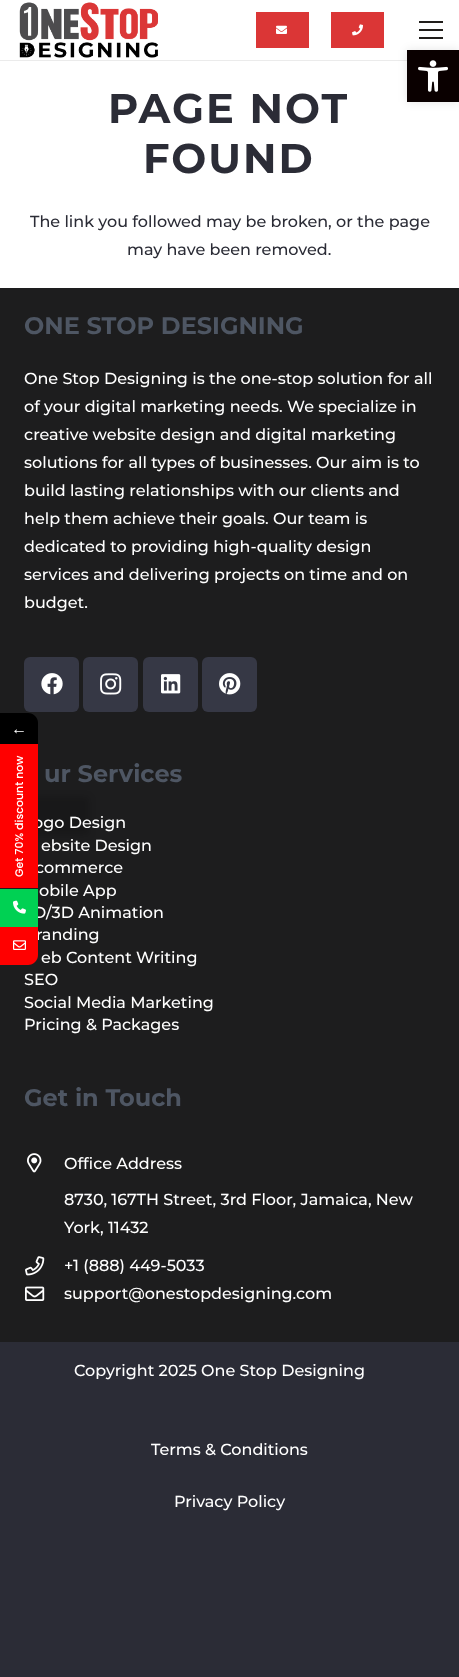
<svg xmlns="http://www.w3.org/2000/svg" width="459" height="1677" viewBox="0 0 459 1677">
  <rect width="100%" height="100%" fill="#2b2c36"/>
  <path d="M0 0h459v288H0z" fill="#fff"/>
  <path d="M0 60h407v1H0z" fill="#ebebeb"/>
  <path d="M419 37h24v2H419z" fill="#211e1b"/>
  <path d="M407 50h52v52H407z" fill="#0000001a" filter="blur(5px)"/>
  <path d="M407 50h52v52H407z" fill="#0a0000"/>
  <image x="418" y="60" width="30" height="32" href="img/1.png"/>
  <image x="19" y="2" width="139" height="56" href="img/2.png"/>
  <path d="M256 12h53v36H256z" fill="#db3636"/>
  <image x="276" y="25" width="11" height="9" href="img/3.png"/>
  <path d="M331 12h53v36H331z" fill="#db3636"/>
  <image x="352" y="24" width="11" height="12" href="img/4.png"/>
  <path d="M419 29h24v2H419z" fill="#211e1b"/>
  <path d="M419 21h24v2H419z" fill="#211e1b"/>
  <path d="M0 288h459v1054H0z" fill="#1d1d1e"/>
  <path d="M0 713H28C33.5 713 38 717.5 38 723V745H0Z" fill="#000"/>
  <path d="M-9 797h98v38H-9z" fill="#00000029" filter="blur(3px)"/>
  <rect x="24" y="657" width="55" height="55" rx="6" fill="#363845"/>
  <image x="41" y="673" width="22" height="22" href="img/7.png"/>
  <rect x="83" y="657" width="55" height="55" rx="6" fill="#363845"/>
  <image x="100" y="673" width="22" height="22" href="img/8.png"/>
  <rect x="143" y="657" width="55" height="55" rx="6" fill="#363845"/>
  <image x="161" y="674" width="20" height="20" href="img/9.png"/>
  <rect x="202" y="657" width="55" height="55" rx="6" fill="#363845"/>
  <image x="219" y="673" width="22" height="22" href="img/10.png"/>
  <image x="27" y="1153" width="15" height="20" href="img/11.png"/>
  <image x="25" y="1256" width="20" height="20" href="img/12.png"/>
  <image x="25" y="1286" width="20" height="15" href="img/13.png"/>
  <g font-family="Montserrat" font-size="41.5" font-weight="bold" letter-spacing="2" fill="#2b2c36">
    <text x="108" y="123">PAGE NOT</text>
    <text x="143" y="173">FOUND</text>
  </g>
  <g font-family="Montserrat" font-size="16" font-weight="500" fill="#2b2c36">
    <text x="30" y="227">The link you followed may be broken, or the page</text>
    <text x="127" y="255">may have been removed.</text>
  </g>
  <text x="11" y="734" font-family="Liberation Serif" font-size="16" fill="#fff">←</text>
  <text x="24" y="334" font-family="Montserrat" font-size="24" font-weight="bold" fill="#4e5663">ONE STOP DESIGNING</text>
  <g font-family="Montserrat" font-size="16" font-weight="500" fill="#fff">
    <text x="24" y="384">One Stop Designing is the one-stop solution for all</text>
    <text x="24" y="412">of your digital marketing needs. We specialize in</text>
    <text x="24" y="440">creative website design and digital marketing</text>
    <text x="24" y="468">solutions for all types of businesses. Our aim is to</text>
    <text x="24" y="496">build lasting relationships with our clients and</text>
    <text x="24" y="524">help them achieve their goals. Our team is</text>
    <text x="24" y="552">dedicated to providing high-quality design</text>
    <text x="24" y="580">services and delivering projects on time and on</text>
    <text x="24" y="608">budget.</text>
  </g>
  <text x="44" y="782" font-family="Montserrat" font-size="24" font-weight="bold" fill="#4e5663">ur Services</text>
  <g font-family="Montserrat" font-size="16" font-weight="500" fill="#fff">
    <text x="33" y="828">ogo Design</text>
    <text x="41" y="851">ebsite Design</text>
    <text x="35" y="873">commerce</text>
  </g>
  <path d="M0 744h38v144H0z" fill="#f00"/>
  <text x="23" y="877" transform="rotate(-90 23 877)" font-family="Poppins" font-size="11" font-weight="500" fill="#fff">Get 70% discount now</text>
  <g font-family="Montserrat" font-size="16" font-weight="500" fill="#fff">
    <text x="39" y="896">obile App</text>
    <text x="33" y="918">D/3D Animation</text>
  </g>
  <path d="M0 889h38v38H0z" fill="#00d153"/>
  <image x="13" y="900" width="13" height="14" href="img/5.png"/>
  <text x="36" y="940" font-family="Montserrat" font-size="16" font-weight="500" fill="#fff">randing</text>
  <path d="M0 927H38V955C38 960.5 33.5 965 28 965H0Z" fill="#f00"/>
  <image x="13" y="940" width="13" height="10" href="img/6.png"/>
  <g font-family="Montserrat" font-size="16" font-weight="500" fill="#fff">
    <text x="41" y="963">eb Content Writing</text>
    <text x="24" y="985">SEO</text>
    <text x="24" y="1008">Social Media Marketing</text>
    <text x="24" y="1030">Pricing &amp; Packages</text>
  </g>
  <text x="24" y="1106" font-family="Montserrat" font-size="24" font-weight="bold" fill="#4e5663">Get in Touch</text>
  <g font-family="Montserrat" font-size="16" font-weight="500" fill="#fff">
    <text x="64" y="1169">Office Address</text>
    <text x="64" y="1205">8730, 167TH Street, 3rd Floor, Jamaica, New</text>
    <text x="64" y="1233">York, 11432</text>
    <text x="64" y="1271">+1 (888) 449-5033</text>
    <text x="64" y="1299">support@onestopdesigning.com</text>
    <text x="74" y="1376">Copyright 2025 One Stop Designing</text>
    <text x="151" y="1455">Terms &amp; Conditions</text>
    <text x="174" y="1507">Privacy Policy</text>
  </g>
</svg>
